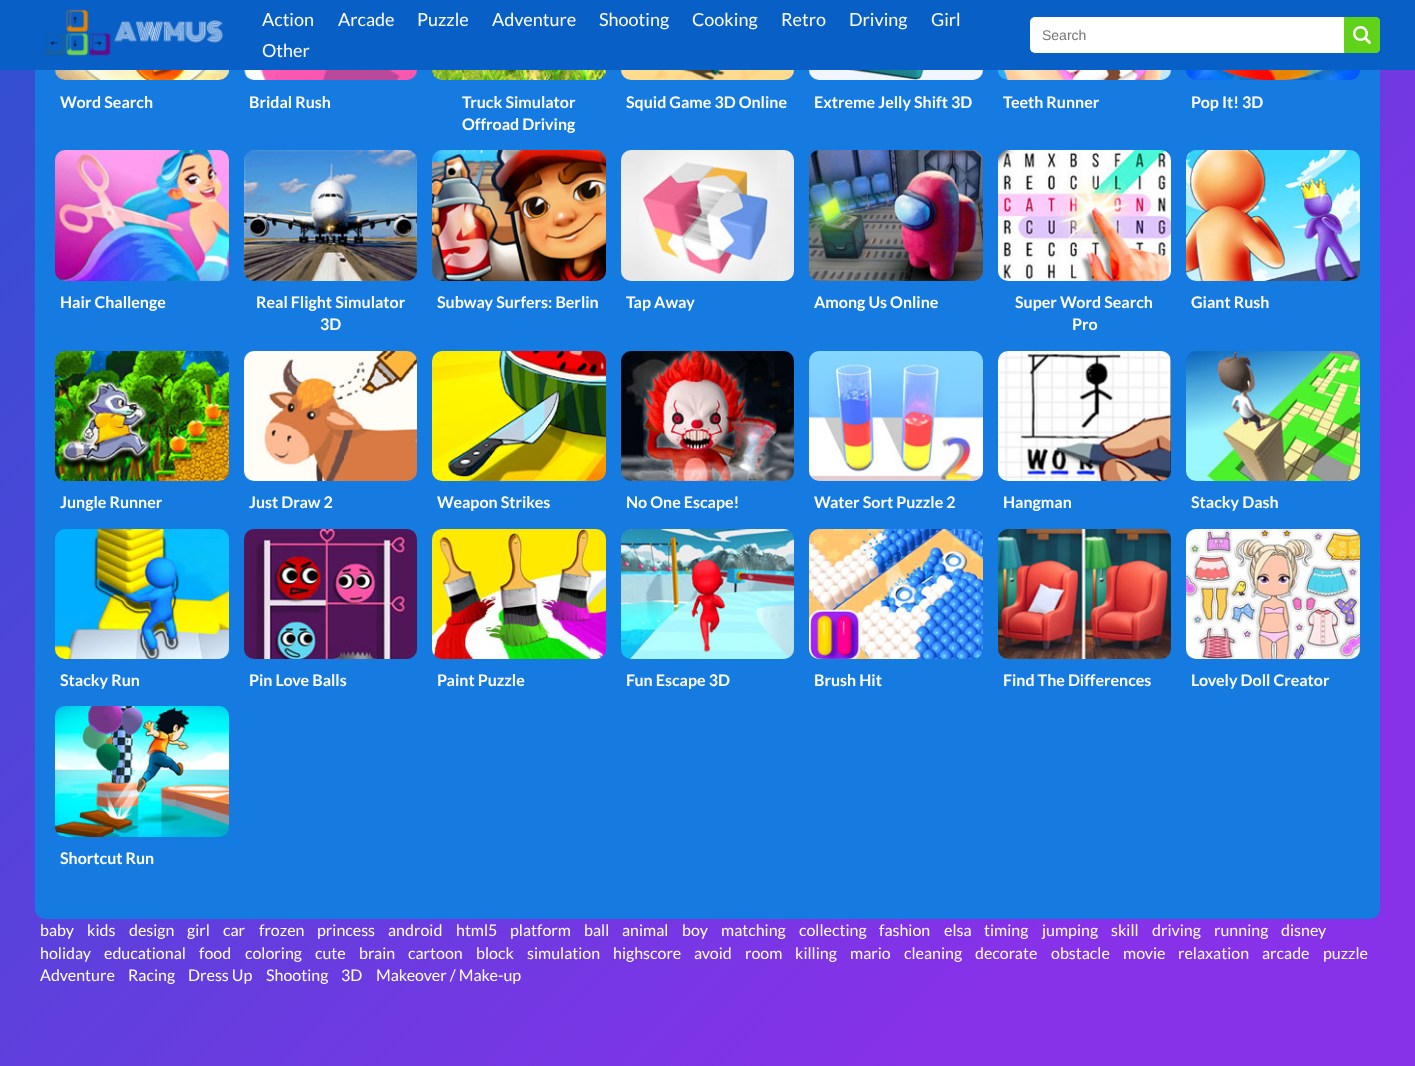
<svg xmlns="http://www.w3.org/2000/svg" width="1415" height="1066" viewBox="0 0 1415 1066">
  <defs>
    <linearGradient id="g1" gradientUnits="userSpaceOnUse" x1="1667" y1="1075" x2="-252" y2="-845"><stop offset="0.2" stop-color="#8731e8"/><stop offset="1" stop-color="#0061c3"/></linearGradient>
  </defs>
  <rect width="100%" height="100%" fill="#fff"/>
  <path d="M0 70h1415v996H0z" fill="url(#g1)"/>
  <rect x="35" y="-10" width="1345" height="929" rx="10" fill="#167be0"/>
  <path d="M0 0h1415v70H0z" fill="#085fc5"/>
  <image x="44" y="9" width="179" height="47" href="img/1.png"/>
  <rect x="1030" y="17" width="350" height="36" rx="5" fill="#fff"/>
  <path d="M1344.5 17.5H1376C1378 17.5 1379.5 19 1379.5 21V49C1379.5 51 1378 52.5 1376 52.5H1344.5Z" fill="#60d218" stroke="#60d218"/>
  <image x="1353" y="26" width="18" height="18" href="img/2.png"/>
  <image x="55" y="70" width="174" height="10" href="img/3.png"/>
  <image x="244" y="70" width="173" height="10" href="img/4.png"/>
  <image x="432" y="70" width="174" height="10" href="img/5.png"/>
  <image x="621" y="70" width="173" height="10" href="img/6.png"/>
  <image x="809" y="70" width="174" height="10" href="img/7.png"/>
  <image x="998" y="70" width="173" height="10" href="img/8.png"/>
  <image x="1186" y="70" width="174" height="10" href="img/9.png"/>
  <image x="55" y="150" width="174" height="131" href="img/10.png"/>
  <image x="244" y="150" width="173" height="131" href="img/11.png"/>
  <image x="432" y="150" width="174" height="131" href="img/12.png"/>
  <image x="621" y="150" width="173" height="131" href="img/13.png"/>
  <image x="809" y="150" width="174" height="131" href="img/14.png"/>
  <image x="998" y="150" width="173" height="131" href="img/15.png"/>
  <image x="1186" y="150" width="174" height="131" href="img/16.png"/>
  <image x="55" y="351" width="174" height="130" href="img/17.png"/>
  <image x="244" y="351" width="173" height="130" href="img/18.png"/>
  <image x="432" y="351" width="174" height="130" href="img/19.png"/>
  <image x="621" y="351" width="173" height="130" href="img/20.png"/>
  <image x="809" y="351" width="174" height="130" href="img/21.png"/>
  <image x="998" y="351" width="173" height="130" href="img/22.png"/>
  <image x="1186" y="351" width="174" height="130" href="img/23.png"/>
  <image x="55" y="529" width="174" height="130" href="img/24.png"/>
  <image x="244" y="529" width="173" height="130" href="img/25.png"/>
  <image x="432" y="529" width="174" height="130" href="img/26.png"/>
  <image x="621" y="529" width="173" height="130" href="img/27.png"/>
  <image x="809" y="529" width="174" height="130" href="img/28.png"/>
  <image x="998" y="529" width="173" height="130" href="img/29.png"/>
  <image x="1186" y="529" width="174" height="130" href="img/30.png"/>
  <image x="55" y="706" width="174" height="131" href="img/31.png"/>
  <g font-family="Lato" font-size="18" fill="#fff">
    <text x="262" y="26">Action</text>
    <text x="338" y="26">Arcade</text>
    <text x="417" y="26">Puzzle</text>
    <text x="492" y="26">Adventure</text>
    <text x="599" y="26">Shooting</text>
    <text x="692" y="26">Cooking</text>
    <text x="781" y="26">Retro</text>
    <text x="849" y="26">Driving</text>
    <text x="931" y="26">Girl</text>
    <text x="262" y="57">Other</text>
  </g>
  <text x="1042" y="40" font-family="Liberation Sans" font-size="14" fill="#757575">Search</text>
  <g font-family="Lato" font-size="16" font-weight="bold" fill="#fff">
    <text x="60" y="108">Word Search</text>
    <text x="249" y="108">Bridal Rush</text>
    <text x="462" y="108">Truck Simulator</text>
    <text x="462" y="130">Offroad Driving</text>
    <text x="626" y="108">Squid Game 3D Online</text>
    <text x="814" y="108">Extreme Jelly Shift 3D</text>
    <text x="1003" y="108">Teeth Runner</text>
    <text x="1191" y="108">Pop It! 3D</text>
    <text x="60" y="308">Hair Challenge</text>
    <text x="256" y="308">Real Flight Simulator</text>
    <text x="320" y="330">3D</text>
    <text x="437" y="308">Subway Surfers: Berlin</text>
    <text x="626" y="308">Tap Away</text>
    <text x="814" y="308">Among Us Online</text>
    <text x="1015" y="308">Super Word Search</text>
    <text x="1072" y="330">Pro</text>
    <text x="1191" y="308">Giant Rush</text>
    <text x="60" y="508">Jungle Runner</text>
    <text x="249" y="508">Just Draw 2</text>
    <text x="437" y="508">Weapon Strikes</text>
    <text x="626" y="508">No One Escape!</text>
    <text x="814" y="508">Water Sort Puzzle 2</text>
    <text x="1003" y="508">Hangman</text>
    <text x="1191" y="508">Stacky Dash</text>
    <text x="60" y="686">Stacky Run</text>
    <text x="249" y="686">Pin Love Balls</text>
    <text x="437" y="686">Paint Puzzle</text>
    <text x="626" y="686">Fun Escape 3D</text>
    <text x="814" y="686">Brush Hit</text>
    <text x="1003" y="686">Find The Differences</text>
    <text x="1191" y="686">Lovely Doll Creator</text>
    <text x="60" y="864">Shortcut Run</text>
  </g>
  <g font-family="Lato" font-size="16" fill="#fff">
    <text x="40" y="936">baby</text>
    <text x="87" y="936">kids</text>
    <text x="129" y="936">design</text>
    <text x="187" y="936">girl</text>
    <text x="223" y="936">car</text>
    <text x="259" y="936">frozen</text>
    <text x="317" y="936">princess</text>
    <text x="388" y="936">android</text>
    <text x="456" y="936">html5</text>
    <text x="510" y="936">platform</text>
    <text x="584" y="936">ball</text>
    <text x="622" y="936">animal</text>
    <text x="682" y="936">boy</text>
    <text x="721" y="936">matching</text>
    <text x="799" y="936">collecting</text>
    <text x="879" y="936">fashion</text>
    <text x="944" y="936">elsa</text>
    <text x="984" y="936">timing</text>
    <text x="1042" y="936">jumping</text>
    <text x="1111" y="936">skill</text>
    <text x="1152" y="936">driving</text>
    <text x="1214" y="936">running</text>
    <text x="1281" y="936">disney</text>
    <text x="40" y="959">holiday</text>
    <text x="104" y="959">educational</text>
    <text x="199" y="959">food</text>
    <text x="245" y="959">coloring</text>
    <text x="315" y="959">cute</text>
    <text x="359" y="959">brain</text>
    <text x="408" y="959">cartoon</text>
    <text x="476" y="959">block</text>
    <text x="527" y="959">simulation</text>
    <text x="613" y="959">highscore</text>
    <text x="694" y="959">avoid</text>
    <text x="745" y="959">room</text>
    <text x="795" y="959">killing</text>
    <text x="850" y="959">mario</text>
    <text x="904" y="959">cleaning</text>
    <text x="975" y="959">decorate</text>
    <text x="1051" y="959">obstacle</text>
    <text x="1123" y="959">movie</text>
    <text x="1178" y="959">relaxation</text>
    <text x="1262" y="959">arcade</text>
    <text x="1323" y="959">puzzle</text>
    <text x="40" y="981">Adventure</text>
    <text x="128" y="981">Racing</text>
    <text x="188" y="981">Dress Up</text>
    <text x="266" y="981">Shooting</text>
    <text x="341" y="981">3D</text>
    <text x="376" y="981">Makeover / Make-up</text>
  </g>
</svg>
